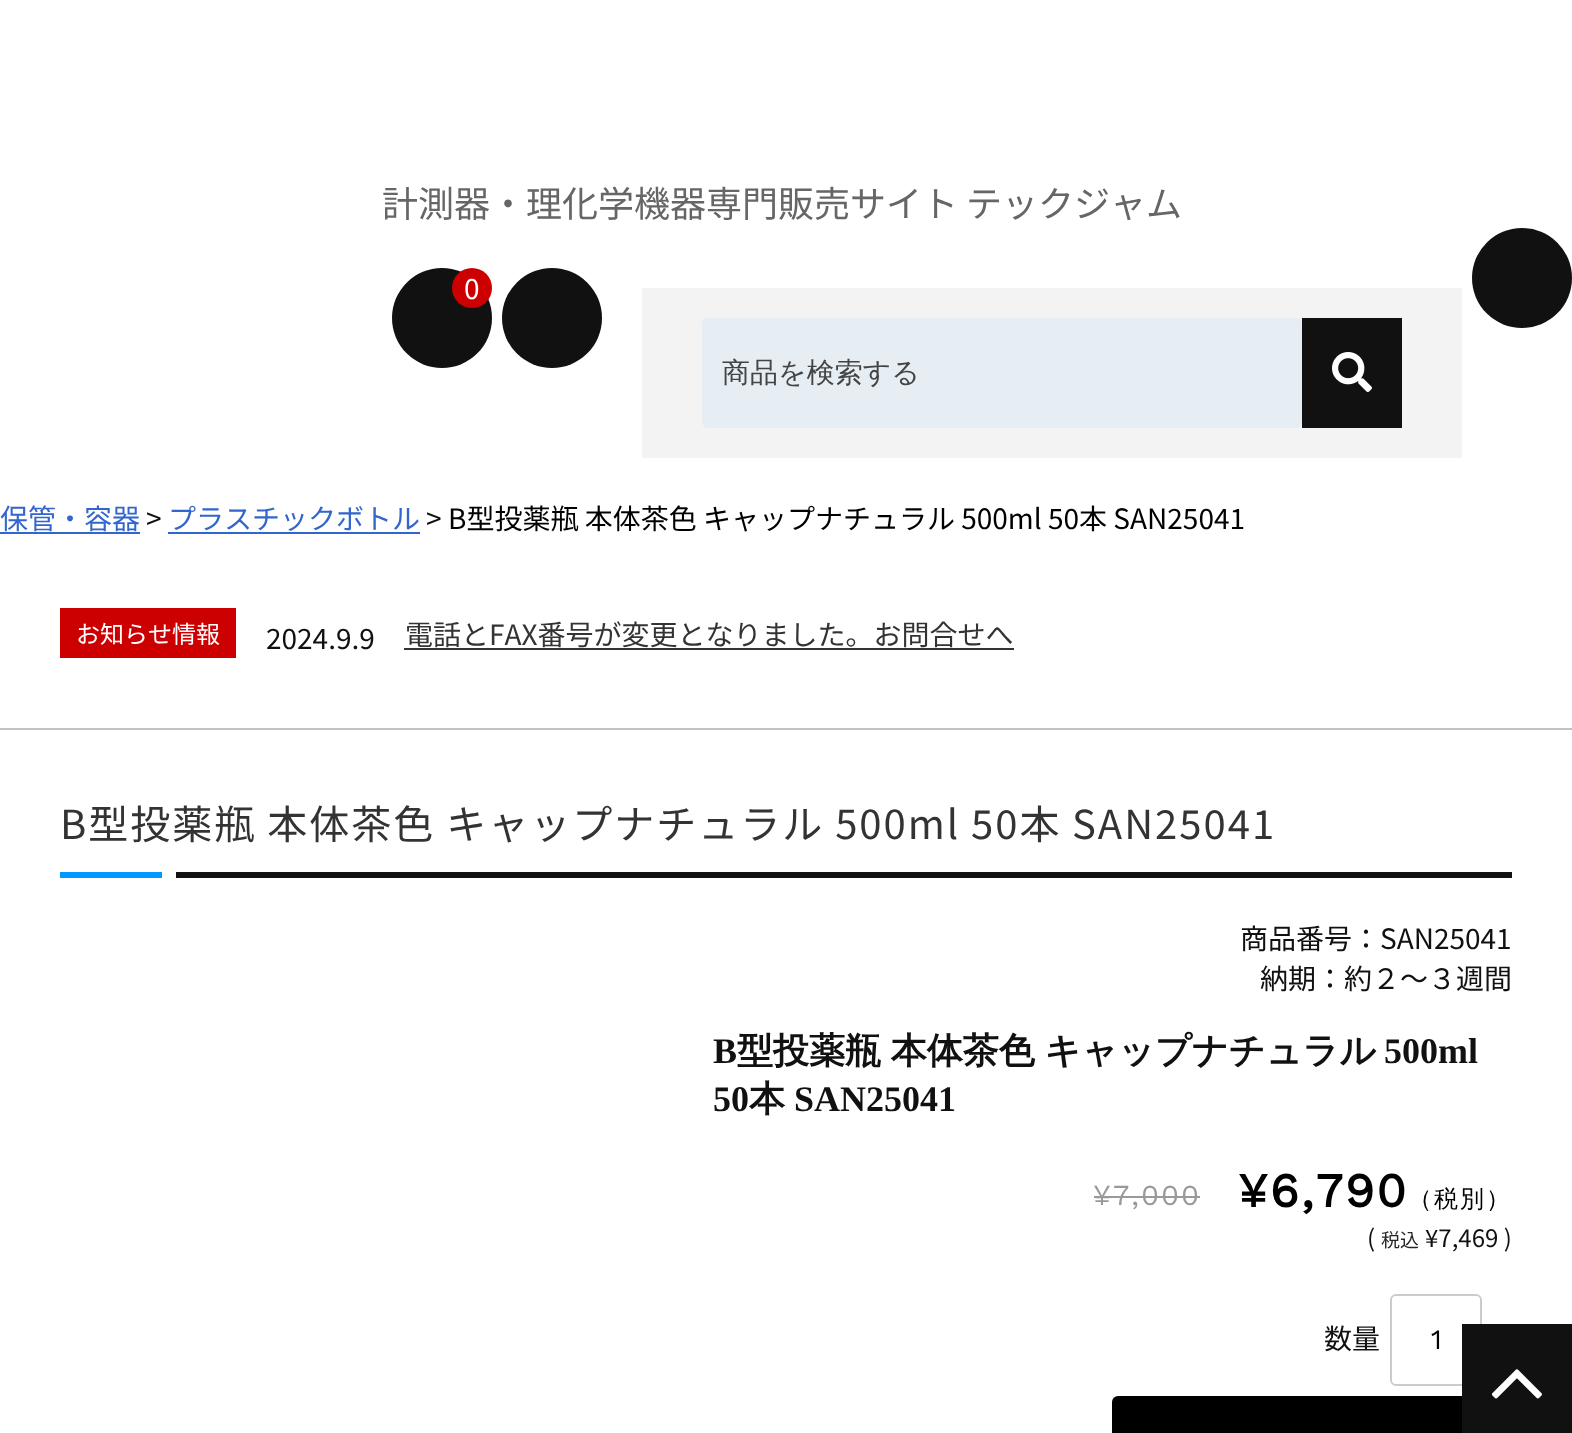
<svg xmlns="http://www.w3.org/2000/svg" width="1572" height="1433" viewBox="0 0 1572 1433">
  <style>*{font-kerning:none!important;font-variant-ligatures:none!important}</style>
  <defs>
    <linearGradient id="g1" gradientUnits="userSpaceOnUse" x1="60" y1="875" x2="1512" y2="875"><stop offset="0" stop-color="#09f"/><stop offset="0.07" stop-color="#09f"/><stop offset="0.07" stop-color="#fff"/><stop offset="0.08" stop-color="#fff"/><stop offset="0.08" stop-color="#121212"/></linearGradient>
  </defs>
  <rect width="100%" height="100%" fill="#fff"/>
  <circle cx="442" cy="318" r="50" fill="#111"/>
  <circle cx="472" cy="288" r="20" fill="#c00"/>
  <circle cx="552" cy="318" r="50" fill="#111"/>
  <path d="M642 288h820v170H642z" fill="#f3f3f4"/>
  <rect x="702" y="318" width="600" height="110" rx="6" fill="#e6edf3"/>
  <path d="M1302 318h100v110H1302z" fill="#111"/>
  <image x="1332" y="352" width="40" height="40" href="img/1.png"/>
  <circle cx="1522" cy="278" r="50" fill="#111"/>
  <path d="M0 532h140v2H0z" fill="#36c"/>
  <path d="M168 532h252v2H168z" fill="#36c"/>
  <path d="M60 608h176v50H60z" fill="#c00"/>
  <path d="M404 648h610v2H404z" fill="#333"/>
  <path d="M0 728h1572v2H0z" fill="#c1c1c4"/>
  <path d="M60 872h1452v6H60z" fill="url(#g1)"/>
  <path d="M1094 1196h106v2H1094z" fill="#999"/>
  <rect x="1391" y="1295" width="90" height="90" rx="5" fill="none" stroke="#ccc" stroke-width="2"/>
  <rect x="1112" y="1396" width="400" height="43" rx="6" fill="#000"/>
  <path d="M1462 1324h110v109H1462z" fill="#111"/>
  <image x="1491" y="1369" width="51" height="30" href="img/2.png"/>
  <text x="382" y="217" font-family="Noto Sans JP" font-size="36" fill="#666">計測器・理化学機器専門販売サイト テックジャム</text>
  <text x="464" y="299" font-family="Noto Sans JP" font-size="28" fill="#fff">0</text>
  <text x="722" y="382" font-family="WenQuanYi Zen Hei" font-size="28" font-weight="500" fill="#444">商品を検索する</text>
  <text x="0" y="529" font-family="Noto Sans JP" font-size="28" fill="#36c">保管・容器</text>
  <text x="146" y="529" font-family="Noto Sans JP" font-size="28" fill="#111">&gt;</text>
  <text x="168" y="529" font-family="Noto Sans JP" font-size="28" fill="#36c">プラスチックボトル</text>
  <text x="426" y="529" font-family="Noto Sans JP" font-size="28" fill="#111">&gt;</text>
  <text x="448" y="529" font-family="Noto Sans JP" font-size="28" fill="#000">B型投薬瓶 本体茶色 キャップナチュラル 500ml 50本 SAN25041</text>
  <text x="76" y="643" font-family="Noto Sans JP" font-size="24" fill="#fff">お知らせ情報</text>
  <text x="266" y="649" font-family="Noto Sans JP" font-size="28" fill="#111">2024.9.9</text>
  <text x="405" y="645" font-family="Noto Sans JP" font-size="28" fill="#333">電話とFAX番号が変更となりました。お問合せへ</text>
  <g font-family="Noto Sans JP" font-size="40" letter-spacing="2" fill="#333">
    <text x="60" y="839">B型投薬瓶 本体茶色 キャップナチュラル 500ml 50本</text>
    <text x="1072" y="839">SAN25041</text>
  </g>
  <g font-family="Noto Sans JP" font-size="28" fill="#111">
    <text x="1240" y="949">商品番号：SAN25041</text>
    <text x="1260" y="989">納期：約２～３週間</text>
  </g>
  <text x="713" y="1063" font-family="Liberation Serif" font-size="36" font-weight="bold" fill="#111">B</text>
  <text x="737" y="1063" word-spacing="-1" font-family="WenQuanYi Zen Hei" font-size="36" font-weight="bold" fill="#111">型投薬瓶 本体茶色 キャップナチュラル</text>
  <g font-family="Liberation Serif" font-size="36" font-weight="bold" fill="#111">
    <text x="1384" y="1063">500ml</text>
    <text x="713" y="1111">50</text>
  </g>
  <text x="749" y="1111" font-family="WenQuanYi Zen Hei" font-size="36" font-weight="bold" fill="#111">本</text>
  <text x="794" y="1111" font-family="Liberation Serif" font-size="36" font-weight="bold" fill="#111">SAN25041</text>
  <text x="1093" y="1205" font-family="Work Sans" font-size="29" letter-spacing="2" fill="#999">¥7,000</text>
  <text x="1238" y="1207" font-family="Work Sans" font-size="48" font-weight="bold" letter-spacing="2" fill="#000">¥6,790</text>
  <text x="1408" y="1207" font-family="WenQuanYi Zen Hei" font-size="24" font-weight="500" letter-spacing="2" fill="#000">（税別）</text>
  <text x="1367" y="1247" font-family="Noto Sans JP" font-size="24" fill="#111">(</text>
  <text x="1381" y="1247" font-family="Noto Sans JP" font-size="19" fill="#262626">税込</text>
  <text x="1425" y="1247" font-family="Noto Sans JP" font-size="24" fill="#111">¥7,469 )</text>
  <text x="1324" y="1349" font-family="Noto Sans JP" font-size="28" fill="#111">数量</text>
  <text x="1431" y="1349" font-family="Work Sans" font-size="28" fill="#000">1</text>
</svg>
